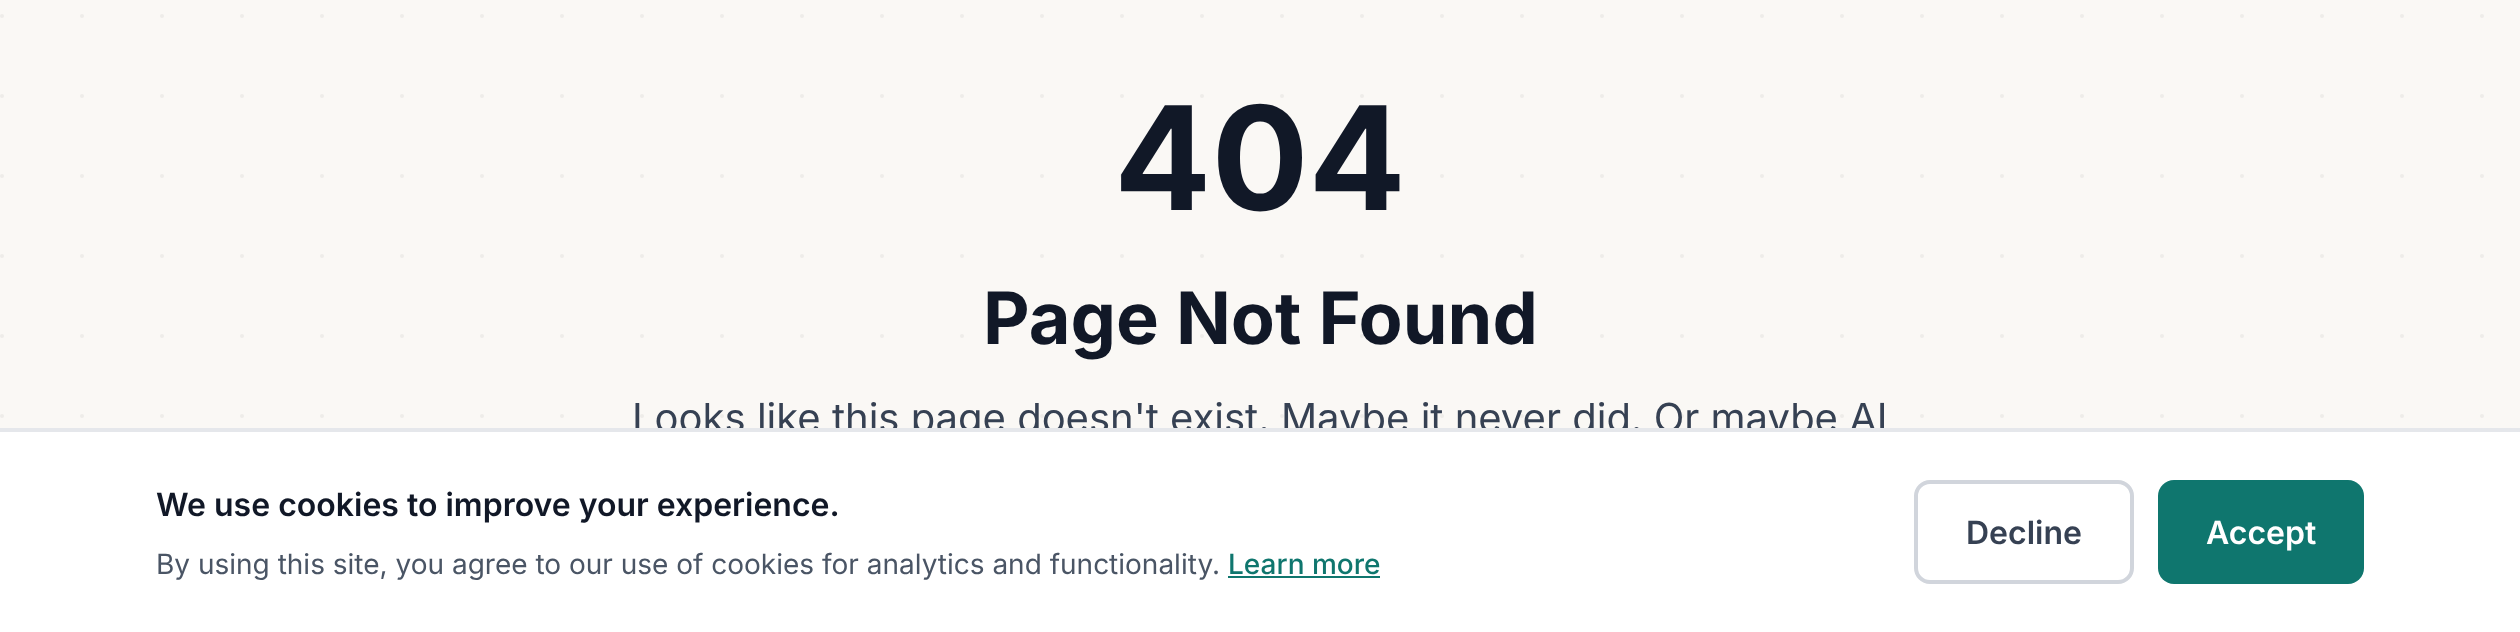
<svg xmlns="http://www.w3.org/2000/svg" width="2520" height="632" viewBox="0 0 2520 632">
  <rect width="100%" height="100%" fill="#faf8f5"/>
  <path d="M2 16H2482.4" fill="none" stroke="#eeece9" stroke-width="4" stroke-linecap="round" stroke-dasharray="0 80"/>
  <path d="M2 96H2482.4" fill="none" stroke="#eeece9" stroke-width="4" stroke-linecap="round" stroke-dasharray="0 80"/>
  <path d="M2 176H2482.4" fill="none" stroke="#eeece9" stroke-width="4" stroke-linecap="round" stroke-dasharray="0 80"/>
  <path d="M2 256H2482.4" fill="none" stroke="#eeece9" stroke-width="4" stroke-linecap="round" stroke-dasharray="0 80"/>
  <path d="M2 336H2482.4" fill="none" stroke="#eeece9" stroke-width="4" stroke-linecap="round" stroke-dasharray="0 80"/>
  <path d="M2 416H2482.4" fill="none" stroke="#eeece9" stroke-width="4" stroke-linecap="round" stroke-dasharray="0 80"/>
  <text x="1114" y="210" font-family="Inter" font-size="144" font-weight="bold" fill="#111827">404</text>
  <text x="983" y="344" font-family="Inter" font-size="72" font-weight="bold" fill="#111827">Page Not Found</text>
  <text x="632" y="432" font-family="Inter" font-size="40" fill="#364153">Looks like this page doesn't exist. Maybe it never did. Or maybe AI</text>
  <path d="M0 432h2520v200H0z" fill="#fff"/>
  <path d="M0 428h2520v4H0z" fill="#e5e7eb"/>
  <text x="156" y="516" font-family="Inter" font-size="32" font-weight="600" fill="#111827">We use cookies to improve your experience.</text>
  <text x="156" y="574" font-family="Inter" font-size="28" fill="#4a5565">By using this site, you agree to our use of cookies for analytics and functionality.</text>
  <text x="1228" y="574" font-family="Inter" font-size="28" font-weight="500" fill="#0f766e">Learn more</text>
  <path d="M1228 576h152v2H1228z" fill="#0f766e"/>
  <rect x="1916" y="482" width="216" height="100" rx="14" fill="none" stroke="#d1d5dc" stroke-width="4"/>
  <text x="1966" y="544" font-family="Inter" font-size="32" font-weight="600" fill="#364153">Decline</text>
  <rect x="2158" y="480" width="206" height="104" rx="16" fill="#0f766e"/>
  <text x="2206" y="544" font-family="Inter" font-size="32" font-weight="600" fill="#fff">Accept</text>
</svg>
